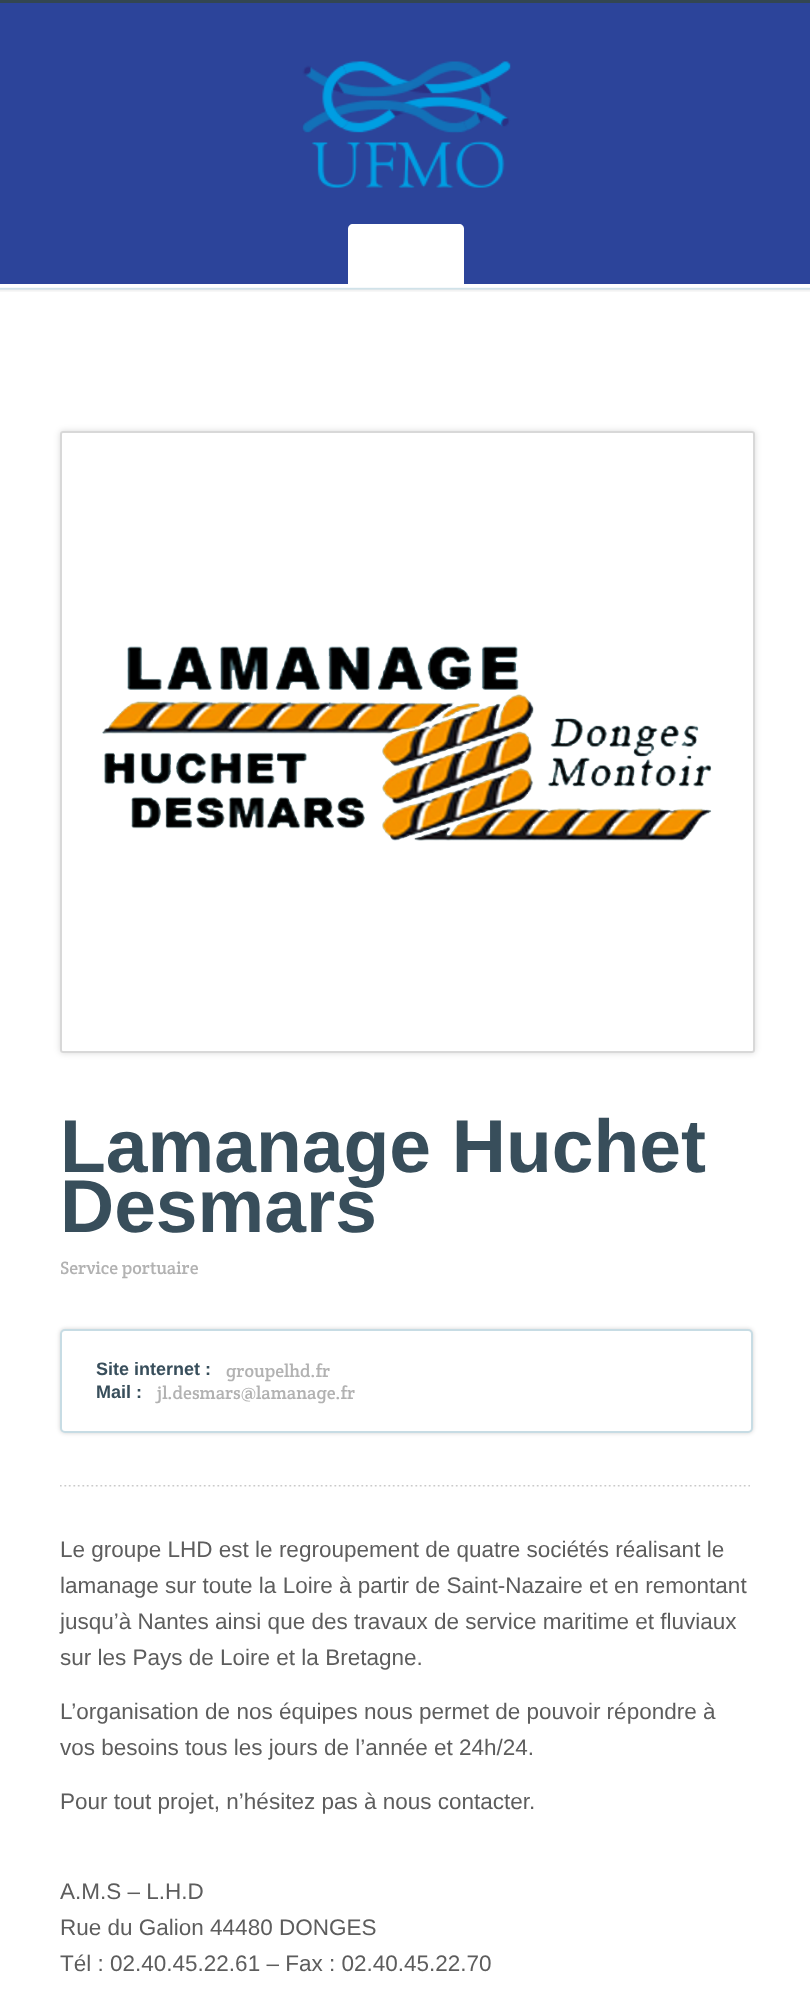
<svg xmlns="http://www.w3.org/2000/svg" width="810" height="2011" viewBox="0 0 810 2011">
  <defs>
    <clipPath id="clip1"><path d="M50 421H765V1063H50ZM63 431H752C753.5 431 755 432.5 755 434V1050C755 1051.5 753.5 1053 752 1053H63C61.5 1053 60 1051.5 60 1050V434C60 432.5 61.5 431 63 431Z" clip-rule="evenodd"/></clipPath>
  </defs>
  <rect width="100%" height="100%" fill="#fff"/>
  <path d="M0 3h810v281H0z" fill="#2c449a"/>
  <path d="M0 0h810v3H0z" fill="#334651"/>
  <image x="302" y="61" width="209" height="127" href="img/1.png"/>
  <path d="M353 224H459C462 224 464 226 464 229V287H348V229C348 226 350 224 353 224Z" fill="#fff"/>
  <image x="0" y="287" width="810" height="5" href="img/2.png"/>
  <g clip-path="url(#clip1)">
    <rect x="60" y="431" width="695" height="622" rx="3" fill="#00000026" filter="blur(3px)"/>
  </g>
  <rect x="61" y="432" width="693" height="620" rx="2" fill="none" stroke="#d8d8d8" stroke-width="2"/>
  <image x="102" y="646" width="610" height="195" href="img/3.png"/>
  <rect x="60" y="1329" width="693" height="104" rx="5" fill="#0000002e" filter="blur(2px)"/>
  <rect x="61" y="1330" width="691" height="102" rx="4" fill="#fff" stroke="#c7dce4" stroke-width="2"/>
  <image x="60" y="1485" width="690" height="2" href="img/4.png"/>
  <g font-family="Liberation Sans" font-size="75" font-weight="bold" fill="#384e5b">
    <text x="60" y="1172">Lamanage Huchet</text>
    <text x="60" y="1232">Desmars</text>
  </g>
  <text x="60" y="1274" font-family="Crete Round" font-size="18" fill="#b2b2b2">Service portuaire</text>
  <text x="96" y="1375" font-family="Liberation Sans" font-size="18" font-weight="bold" fill="#384e5b">Site internet :</text>
  <text x="226" y="1377" font-family="Crete Round" font-size="18" fill="#b2b2b2">groupelhd.fr</text>
  <text x="96" y="1398" font-family="Liberation Sans" font-size="18" font-weight="bold" fill="#384e5b">Mail :</text>
  <text x="157" y="1399" font-family="Crete Round" font-size="18" fill="#b2b2b2">jl.desmars@lamanage.fr</text>
  <g font-family="Liberation Sans" font-size="22.5" fill="#5d5d5d">
    <text x="60" y="1557">Le groupe LHD est le regroupement de quatre sociétés réalisant le</text>
    <text x="60" y="1593">lamanage sur toute la Loire à partir de Saint-Nazaire et en remontant</text>
    <text x="60" y="1629">jusqu’à Nantes ainsi que des travaux de service maritime et fluviaux</text>
    <text x="60" y="1665">sur les Pays de Loire et la Bretagne.</text>
    <text x="60" y="1719">L’organisation de nos équipes nous permet de pouvoir répondre à</text>
    <text x="60" y="1755">vos besoins tous les jours de l’année et 24h/24.</text>
    <text x="60" y="1809">Pour tout projet, n’hésitez pas à nous contacter.</text>
    <text x="60" y="1899">A.M.S – L.H.D</text>
    <text x="60" y="1935">Rue du Galion 44480 DONGES</text>
    <text x="60" y="1971">Tél : 02.40.45.22.61 – Fax : 02.40.45.22.70</text>
  </g>
</svg>
